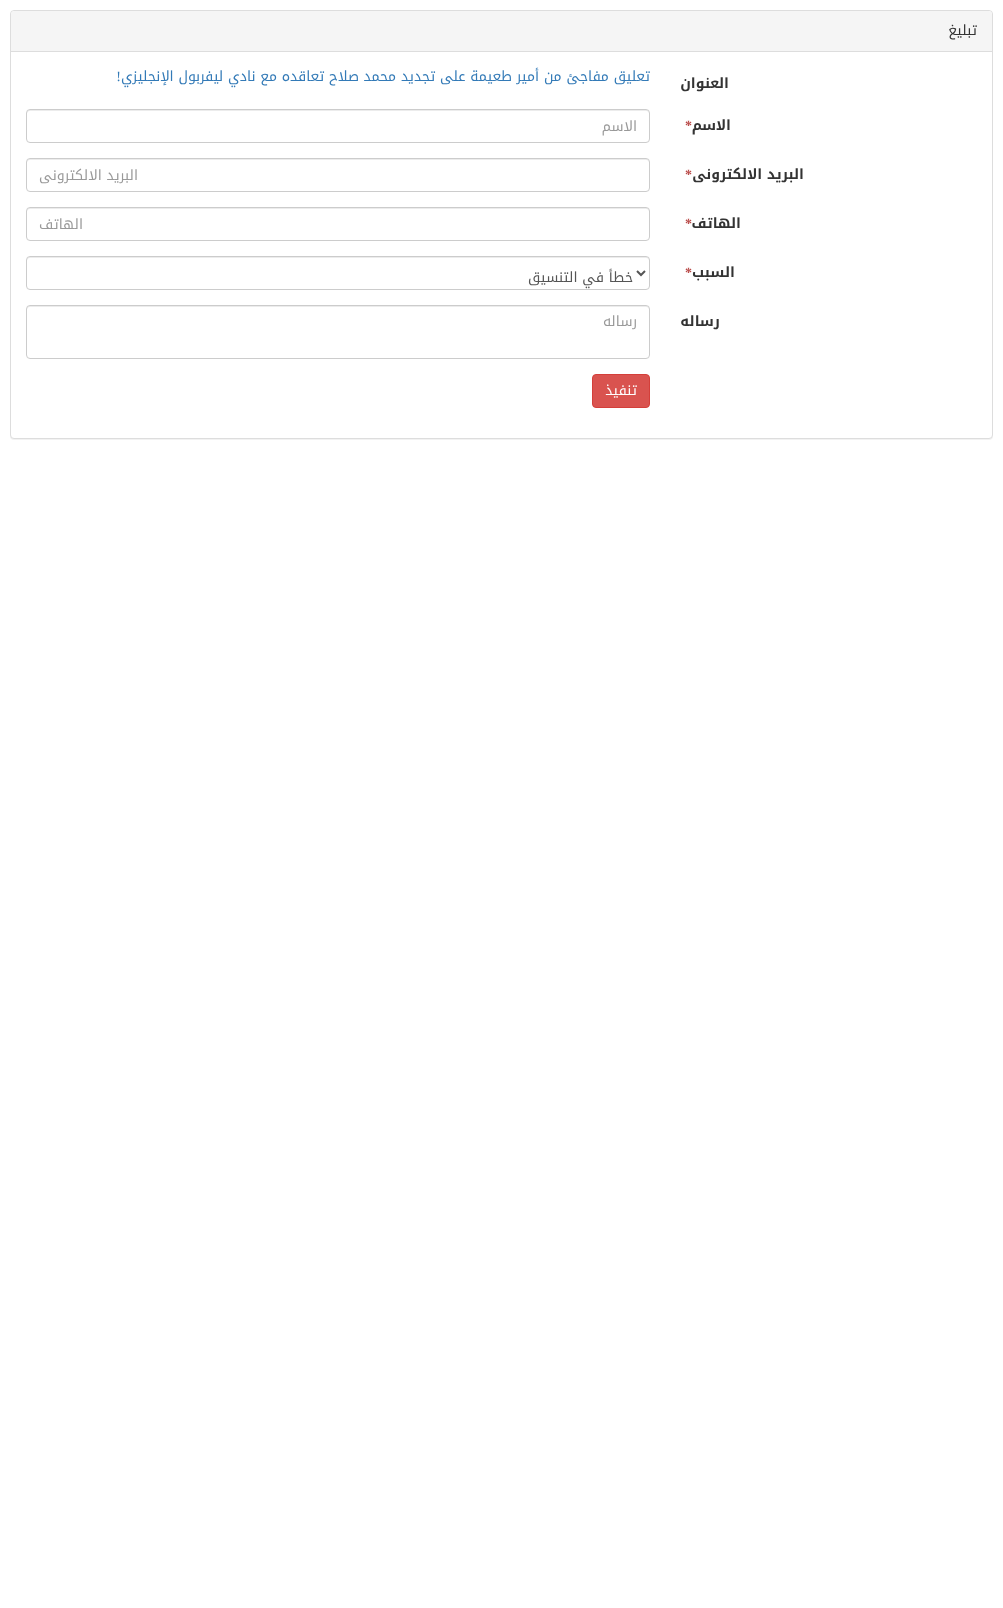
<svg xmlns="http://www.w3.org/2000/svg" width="1003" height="1608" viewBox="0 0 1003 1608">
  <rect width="100%" height="100%" fill="#fff"/>
  <rect x="10" y="11" width="983" height="429" rx="4" fill="#0000000d" filter="blur(0.5px)"/>
  <rect x="10.5" y="10.5" width="982" height="428" rx="3.5" fill="#fff" stroke="#ddd"/>
  <path d="M14 11H989C990.5 11 992 12.5 992 14V52H11V14C11 12.5 12.5 11 14 11Z" fill="#f5f5f5"/>
  <path d="M11 51h981v1H11z" fill="#ddd"/>
  <path d="M30 111H646C648 111 649 112 649 114V113C649 111 648 110 646 110H30C28 110 27 111 27 113V114C27 112 28 111 30 111Z" fill="#ececec"/>
  <rect x="26.5" y="109.5" width="623" height="33" rx="3.5" fill="none" stroke="#ccc"/>
  <path d="M30 160H646C648 160 649 161 649 163V162C649 160 648 159 646 159H30C28 159 27 160 27 162V163C27 161 28 160 30 160Z" fill="#ececec"/>
  <rect x="26.5" y="158.5" width="623" height="33" rx="3.5" fill="none" stroke="#ccc"/>
  <path d="M30 209H646C648 209 649 210 649 212V211C649 209 648 208 646 208H30C28 208 27 209 27 211V212C27 210 28 209 30 209Z" fill="#ececec"/>
  <rect x="26.5" y="207.5" width="623" height="33" rx="3.5" fill="none" stroke="#ccc"/>
  <path d="M30 258H646C648 258 649 259 649 261V260C649 258 648 257 646 257H30C28 257 27 258 27 260V261C27 259 28 258 30 258Z" fill="#ececec"/>
  <rect x="26.5" y="256.5" width="623" height="33" rx="3.5" fill="none" stroke="#ccc"/>
  <path d="M637 271L641 275L645 271" fill="none" stroke="#555" stroke-width="2"/>
  <path d="M30 307H646C648 307 649 308 649 310V309C649 307 648 306 646 306H30C28 306 27 307 27 309V310C27 308 28 307 30 307Z" fill="#ececec"/>
  <rect x="26.5" y="305.5" width="623" height="53" rx="3.5" fill="none" stroke="#ccc"/>
  <rect x="592.5" y="374.5" width="57" height="33" rx="3.5" fill="#d9534f" stroke="#d43f3a"/>
  <text x="977" y="35" font-family="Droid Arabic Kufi" font-size="14" direction="rtl" fill="#333">تبليغ</text>
  <text x="729" y="88" font-family="Droid Arabic Kufi" font-size="14" font-weight="bold" direction="rtl" fill="#333">العنوان</text>
  <text x="650" y="81" font-family="Droid Arabic Kufi" font-size="14" direction="rtl" fill="#337ab7">تعليق مفاجئ من أمير طعيمة على تجديد محمد صلاح تعاقده مع نادي ليفربول الإنجليزي</text>
  <text x="121" y="81" font-family="Liberation Serif" font-size="14" direction="rtl" fill="#337ab7">!</text>
  <text x="731" y="130" font-family="Droid Arabic Kufi" font-size="14" font-weight="bold" direction="rtl" fill="#333">الاسم</text>
  <text x="685" y="130" font-family="Liberation Serif" font-size="14" font-weight="bold" fill="#b94a48">*</text>
  <text x="637" y="131" font-family="Droid Arabic Kufi" font-size="14" direction="rtl" fill="#999">الاسم</text>
  <text x="804" y="179" font-family="Droid Arabic Kufi" font-size="14" font-weight="bold" direction="rtl" fill="#333">البريد الالكترونى</text>
  <text x="685" y="179" font-family="Liberation Serif" font-size="14" font-weight="bold" fill="#b94a48">*</text>
  <text x="138" y="180" font-family="Droid Arabic Kufi" font-size="14" direction="rtl" fill="#999">البريد الالكترونى</text>
  <text x="741" y="228" font-family="Droid Arabic Kufi" font-size="14" font-weight="bold" direction="rtl" fill="#333">الهاتف</text>
  <text x="685" y="228" font-family="Liberation Serif" font-size="14" font-weight="bold" fill="#b94a48">*</text>
  <text x="83" y="229" font-family="Droid Arabic Kufi" font-size="14" direction="rtl" fill="#999">الهاتف</text>
  <text x="735" y="277" font-family="Droid Arabic Kufi" font-size="14" font-weight="bold" direction="rtl" fill="#333">السبب</text>
  <text x="685" y="277" font-family="Liberation Serif" font-size="14" font-weight="bold" fill="#b94a48">*</text>
  <text x="633" y="282" font-family="Droid Arabic Kufi" font-size="14" direction="rtl" fill="#555">خطأ في التنسيق</text>
  <text x="720" y="326" font-family="Droid Arabic Kufi" font-size="14" font-weight="bold" direction="rtl" fill="#333">رساله</text>
  <text x="637" y="326" font-family="Droid Arabic Kufi" font-size="14" direction="rtl" fill="#999">رساله</text>
  <text x="637" y="395" font-family="Droid Arabic Kufi" font-size="14" direction="rtl" fill="#fff">تنفيذ</text>
</svg>
